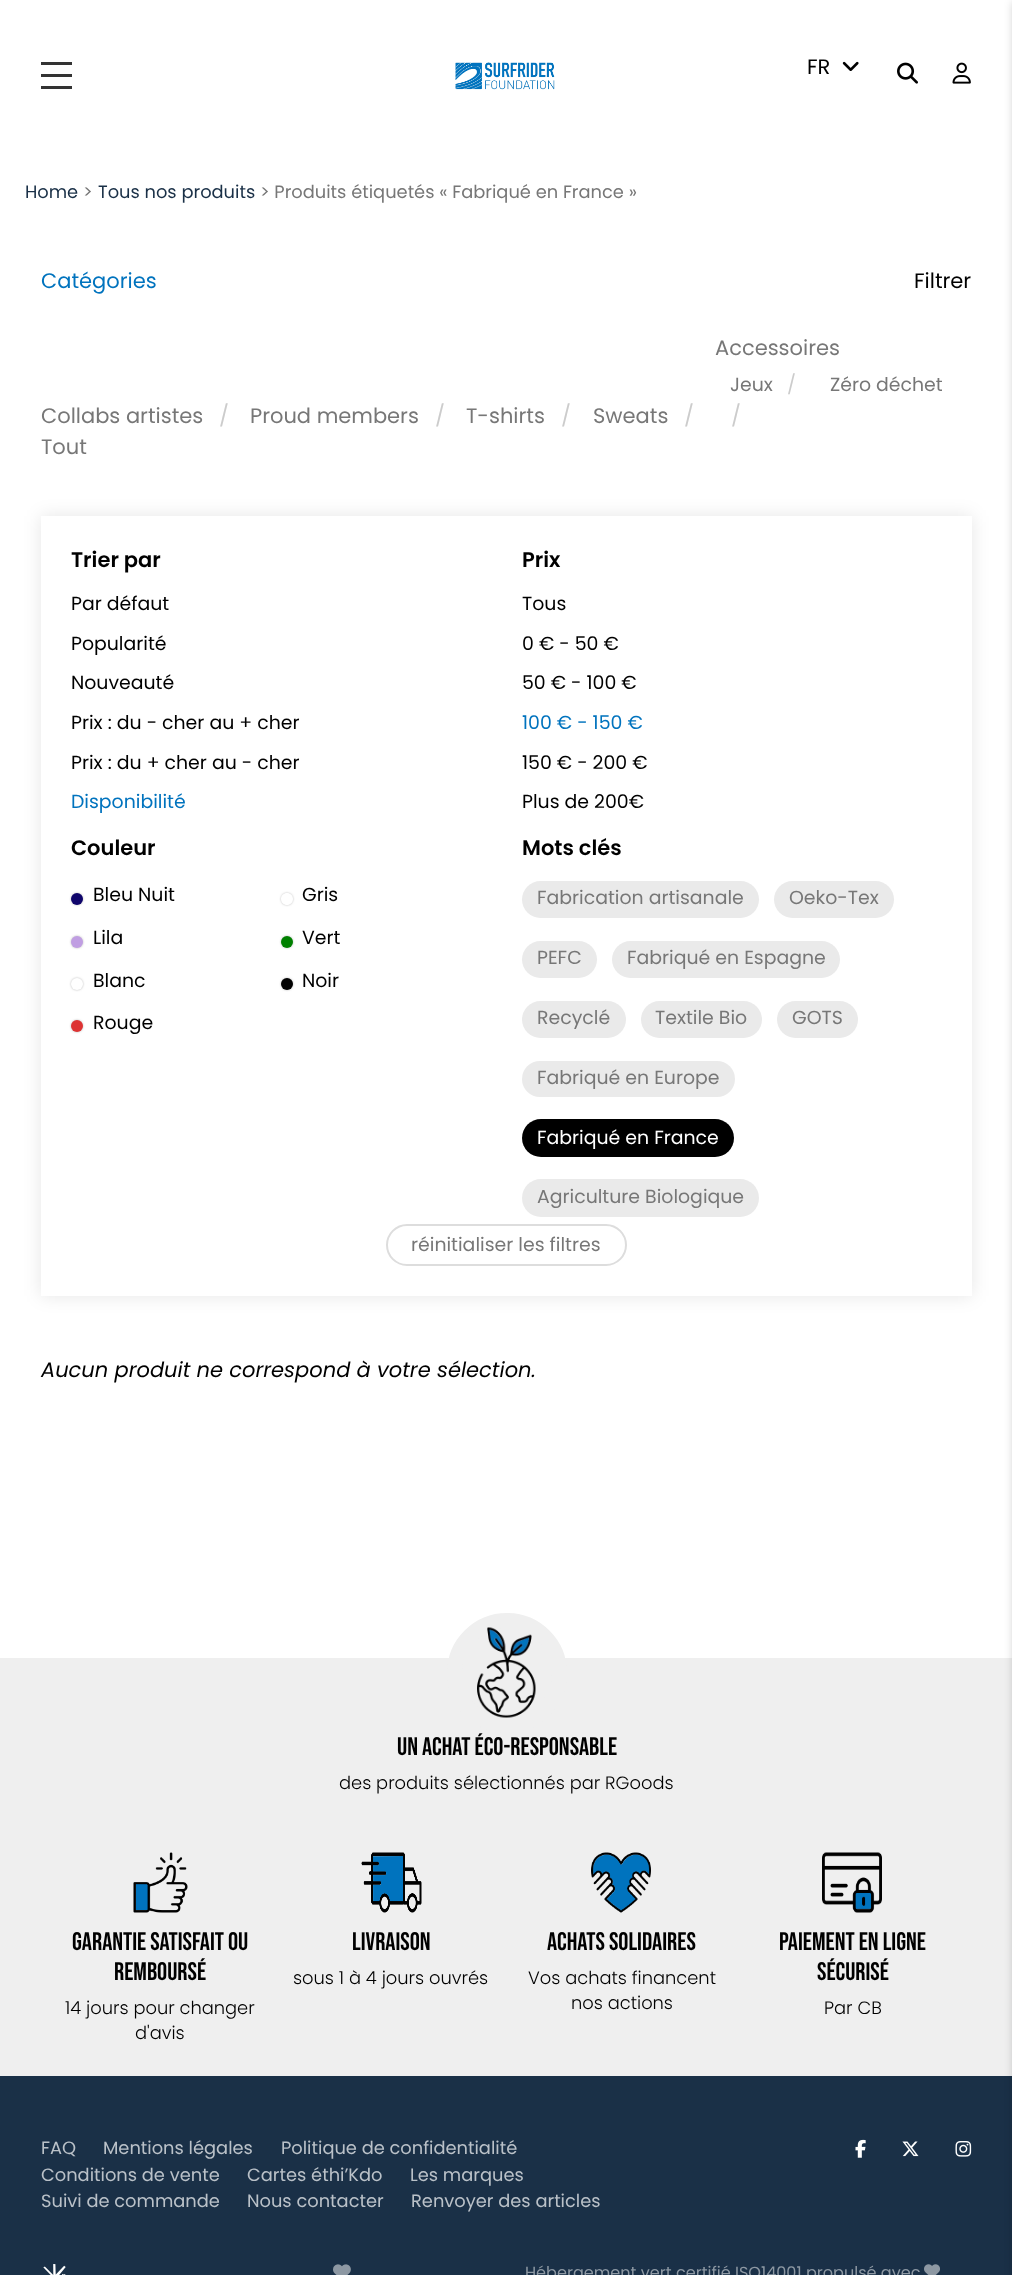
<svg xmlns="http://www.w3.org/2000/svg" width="1012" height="2275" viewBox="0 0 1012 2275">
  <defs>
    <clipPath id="clip1"><path d="M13 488H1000V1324H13ZM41 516H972V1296H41Z" clip-rule="evenodd"/></clipPath>
    <clipPath id="clip2"><path d="M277 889H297V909H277ZM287 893C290.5 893 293 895.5 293 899C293 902.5 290.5 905 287 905C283.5 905 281 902.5 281 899C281 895.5 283.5 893 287 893Z" clip-rule="evenodd"/></clipPath>
  </defs>
  <rect width="100%" height="100%" fill="#fff"/>
  <path d="M41 62h31v3H41z" fill="#333"/>
  <path d="M41 86h31v3H41z" fill="#333"/>
  <path d="M41 74h31v3H41z" fill="#333"/>
  <image x="455" y="62" width="100" height="28" href="img/1.png"/>
  <image x="842" y="61" width="17" height="10" href="img/2.png"/>
  <image x="897" y="62" width="21" height="22" href="img/3.png"/>
  <image x="952" y="62" width="19" height="22" href="img/4.png"/>
  <path d="M0 1658h1012v418H0z" fill="#efefef"/>
  <path d="M0 2076h1012v199H0z" fill="#1a3047"/>
  <path d="M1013 2h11v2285H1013z" fill="#00000033" filter="blur(4px)"/>
  <g clip-path="url(#clip1)">
    <path d="M41 516h931v780H41z" fill="#0000001a" filter="blur(9px)"/>
  </g>
  <rect x="71" y="893" width="12" height="12" rx="6" fill="#bbb" filter="blur(1px)"/>
  <circle cx="77" cy="899" r="6" fill="#0f056b"/>
  <g clip-path="url(#clip2)">
    <rect x="281" y="893" width="12" height="12" rx="6" fill="#bbb" filter="blur(1px)"/>
  </g>
  <rect x="71" y="936" width="12" height="12" rx="6" fill="#bbb" filter="blur(1px)"/>
  <circle cx="77" cy="942" r="6" fill="#c09ee2"/>
  <rect x="281" y="936" width="12" height="12" rx="6" fill="#bbb" filter="blur(1px)"/>
  <circle cx="287" cy="942" r="6" fill="#008000"/>
  <rect x="71" y="978" width="12" height="12" rx="6" fill="#bbb" filter="blur(1px)"/>
  <circle cx="77" cy="984" r="6" fill="#fff"/>
  <rect x="281" y="978" width="12" height="12" rx="6" fill="#bbb" filter="blur(1px)"/>
  <circle cx="287" cy="984" r="6" fill="#020202"/>
  <rect x="71" y="1020" width="12" height="12" rx="6" fill="#bbb" filter="blur(1px)"/>
  <circle cx="77" cy="1026" r="6" fill="#d33"/>
  <rect x="522" y="881" width="237" height="37" rx="18.5" fill="#eaeaea"/>
  <rect x="774" y="881" width="120" height="37" rx="18.5" fill="#eaeaea"/>
  <rect x="522" y="941" width="75" height="37" rx="18.5" fill="#eaeaea"/>
  <rect x="612" y="941" width="228" height="37" rx="18.5" fill="#eaeaea"/>
  <rect x="522" y="1001" width="104" height="37" rx="18.5" fill="#eaeaea"/>
  <rect x="641" y="1001" width="121" height="37" rx="18.5" fill="#eaeaea"/>
  <rect x="777" y="1001" width="81" height="37" rx="18.5" fill="#eaeaea"/>
  <rect x="522" y="1061" width="213" height="36" rx="18" fill="#eaeaea"/>
  <rect x="522" y="1119" width="212" height="38" rx="19" fill="#000"/>
  <rect x="522" y="1179" width="237" height="38" rx="19" fill="#eaeaea"/>
  <rect x="387" y="1225" width="239" height="40" rx="20" fill="none" stroke="#ddd" stroke-width="2"/>
  <circle cx="507" cy="1673" r="52.5" fill="#efefef" stroke="#efefef" stroke-width="15"/>
  <image x="477" y="1627" width="59" height="91" href="img/5.png"/>
  <image x="133" y="1852" width="55" height="61" href="img/6.png"/>
  <image x="361" y="1852" width="61" height="61" href="img/7.png"/>
  <image x="591" y="1852" width="60" height="61" href="img/8.png"/>
  <image x="822" y="1852" width="60" height="61" href="img/9.png"/>
  <image x="855" y="2139" width="11" height="19" href="img/10.png"/>
  <image x="902" y="2141" width="17" height="16" href="img/11.png"/>
  <image x="955" y="2141" width="17" height="16" href="img/12.png"/>
  <image x="43" y="2264" width="23" height="11" href="img/13.png"/>
  <image x="333" y="2264" width="18" height="11" href="img/14.png"/>
  <image x="924" y="2264" width="16" height="11" href="img/15.png"/>
  <text x="807" y="74" font-family="Poppins" font-size="21" fill="#000">FR</text>
  <text x="25" y="198" font-family="Poppins" font-size="17.85" fill="#1a3047">Home</text>
  <text x="83" y="198" font-family="Poppins" font-size="17.85" fill="#777">&gt;</text>
  <text x="98" y="198" font-family="Poppins" font-size="17.85" fill="#1a3047">Tous nos produits</text>
  <text x="260" y="198" font-family="Poppins" font-size="17.85" fill="#777">&gt; Produits étiquetés « Fabriqué en France »</text>
  <text x="41" y="288" font-family="Poppins" font-size="21" fill="#0073be">Catégories</text>
  <text x="914" y="288" font-family="Poppins" font-size="21" fill="#000">Filtrer</text>
  <text x="41" y="423" font-family="Poppins" font-size="21" fill="#777">Collabs artistes</text>
  <text x="219" y="423" font-family="Poppins" font-size="21" fill="#ccc">/</text>
  <text x="250" y="423" font-family="Poppins" font-size="21" fill="#777">Proud members</text>
  <text x="435" y="423" font-family="Poppins" font-size="21" fill="#ccc">/</text>
  <text x="466" y="423" font-family="Poppins" font-size="21" fill="#777">T-shirts</text>
  <text x="561" y="423" font-family="Poppins" font-size="21" fill="#ccc">/</text>
  <text x="593" y="423" font-family="Poppins" font-size="21" fill="#777">Sweats</text>
  <text x="684" y="423" font-family="Poppins" font-size="21" fill="#ccc">/</text>
  <text x="715" y="355" font-family="Poppins" font-size="21" fill="#777">Accessoires</text>
  <text x="730" y="391" font-family="Poppins" font-size="18.9" fill="#777">Jeux</text>
  <text x="787" y="391" font-family="Poppins" font-size="18.9" fill="#ccc">/</text>
  <text x="830" y="391" font-family="Poppins" font-size="18.9" fill="#777">Zéro déchet</text>
  <text x="731" y="423" font-family="Poppins" font-size="21" fill="#ccc">/</text>
  <text x="41" y="454" font-family="Poppins" font-size="21" fill="#777">Tout</text>
  <text x="71" y="567" font-family="Poppins" font-size="21" font-weight="600" fill="#000">Trier par</text>
  <g font-family="Poppins" font-size="18.9" fill="#000">
    <text x="71" y="610">Par défaut</text>
    <text x="71" y="650">Popularité</text>
    <text x="71" y="689">Nouveauté</text>
    <text x="71" y="729">Prix : du - cher au + cher</text>
    <text x="71" y="769">Prix : du + cher au - cher</text>
  </g>
  <text x="71" y="808" font-family="Poppins" font-size="18.9" fill="#0073be">Disponibilité</text>
  <text x="522" y="567" font-family="Poppins" font-size="21" font-weight="600" fill="#000">Prix</text>
  <g font-family="Poppins" font-size="18.9" fill="#000">
    <text x="522" y="610">Tous</text>
    <text x="522" y="650">0 € - 50 €</text>
    <text x="522" y="689">50 € - 100 €</text>
  </g>
  <text x="522" y="729" font-family="Poppins" font-size="18.9" fill="#0073be">100 € - 150 €</text>
  <g font-family="Poppins" font-size="18.9" fill="#000">
    <text x="522" y="769">150 € - 200 €</text>
    <text x="522" y="808">Plus de 200€</text>
  </g>
  <text x="71" y="855" font-family="Poppins" font-size="21" font-weight="600" fill="#000">Couleur</text>
  <g font-family="Poppins" font-size="18.9" fill="#000">
    <text x="93" y="901">Bleu Nuit</text>
    <text x="302" y="901">Gris</text>
    <text x="93" y="944">Lila</text>
    <text x="302" y="944">Vert</text>
    <text x="93" y="987">Blanc</text>
    <text x="302" y="987">Noir</text>
    <text x="93" y="1029">Rouge</text>
  </g>
  <text x="522" y="855" font-family="Poppins" font-size="21" font-weight="600" fill="#000">Mots clés</text>
  <g font-family="Poppins" font-size="18.9" fill="#777">
    <text x="537" y="904">Fabrication artisanale</text>
    <text x="789" y="904">Oeko-Tex</text>
    <text x="537" y="964">PEFC</text>
    <text x="627" y="964">Fabriqué en Espagne</text>
    <text x="537" y="1024">Recyclé</text>
    <text x="655" y="1024">Textile Bio</text>
    <text x="792" y="1024">GOTS</text>
    <text x="537" y="1084">Fabriqué en Europe</text>
  </g>
  <text x="537" y="1144" font-family="Poppins" font-size="18.9" fill="#fff">Fabriqué en France</text>
  <g font-family="Poppins" font-size="18.9" fill="#777">
    <text x="537" y="1203">Agriculture Biologique</text>
    <text x="411" y="1251">réinitialiser les filtres</text>
  </g>
  <text x="41" y="1377" font-family="Poppins" font-size="21" font-style="italic" fill="#000">Aucun produit ne correspond à votre sélection.</text>
  <text x="397" y="1755" font-family="Bebas Neue" font-size="25.25" fill="#000">Un achat éco-responsable</text>
  <text x="339" y="1789" font-family="Poppins" font-size="17.85" font-weight="300" fill="#000">des produits sélectionnés par RGoods</text>
  <g font-family="Bebas Neue" font-size="25.25" fill="#000">
    <text x="72" y="1950">Garantie satisfait ou</text>
    <text x="114" y="1980">remboursé</text>
  </g>
  <g font-family="Poppins" font-size="17.85" font-weight="300" fill="#000">
    <text x="65" y="2014">14 jours pour changer</text>
    <text x="135" y="2039">d'avis</text>
  </g>
  <text x="352" y="1950" font-family="Bebas Neue" font-size="25.25" fill="#000">Livraison</text>
  <text x="293" y="1984" font-family="Poppins" font-size="17.85" font-weight="300" fill="#000">sous 1 à 4 jours ouvrés</text>
  <text x="547" y="1950" font-family="Bebas Neue" font-size="25.25" fill="#000">Achats solidaires</text>
  <g font-family="Poppins" font-size="17.85" font-weight="300" fill="#000">
    <text x="528" y="1984">Vos achats financent</text>
    <text x="571" y="2009">nos actions</text>
  </g>
  <g font-family="Bebas Neue" font-size="25.25" fill="#000">
    <text x="779" y="1950">Paiement en ligne</text>
    <text x="817" y="1980">sécurisé</text>
  </g>
  <text x="824" y="2014" font-family="Poppins" font-size="17.85" font-weight="300" fill="#000">Par CB</text>
  <g font-family="Poppins" font-size="17.85" fill="#bac1c8">
    <text x="41" y="2154">FAQ</text>
    <text x="103" y="2154">Mentions légales</text>
    <text x="281" y="2154">Politique de confidentialité</text>
    <text x="41" y="2181">Conditions de vente</text>
    <text x="247" y="2181">Cartes éthi’Kdo</text>
    <text x="410" y="2181">Les marques</text>
    <text x="41" y="2207">Suivi de commande</text>
    <text x="247" y="2207">Nous contacter</text>
    <text x="411" y="2207">Renvoyer des articles</text>
  </g>
  <text x="525" y="2278" font-family="Poppins" font-size="16.1" fill="#8d98a3">Hébergement vert certifié ISO14001 propulsé avec</text>
</svg>
